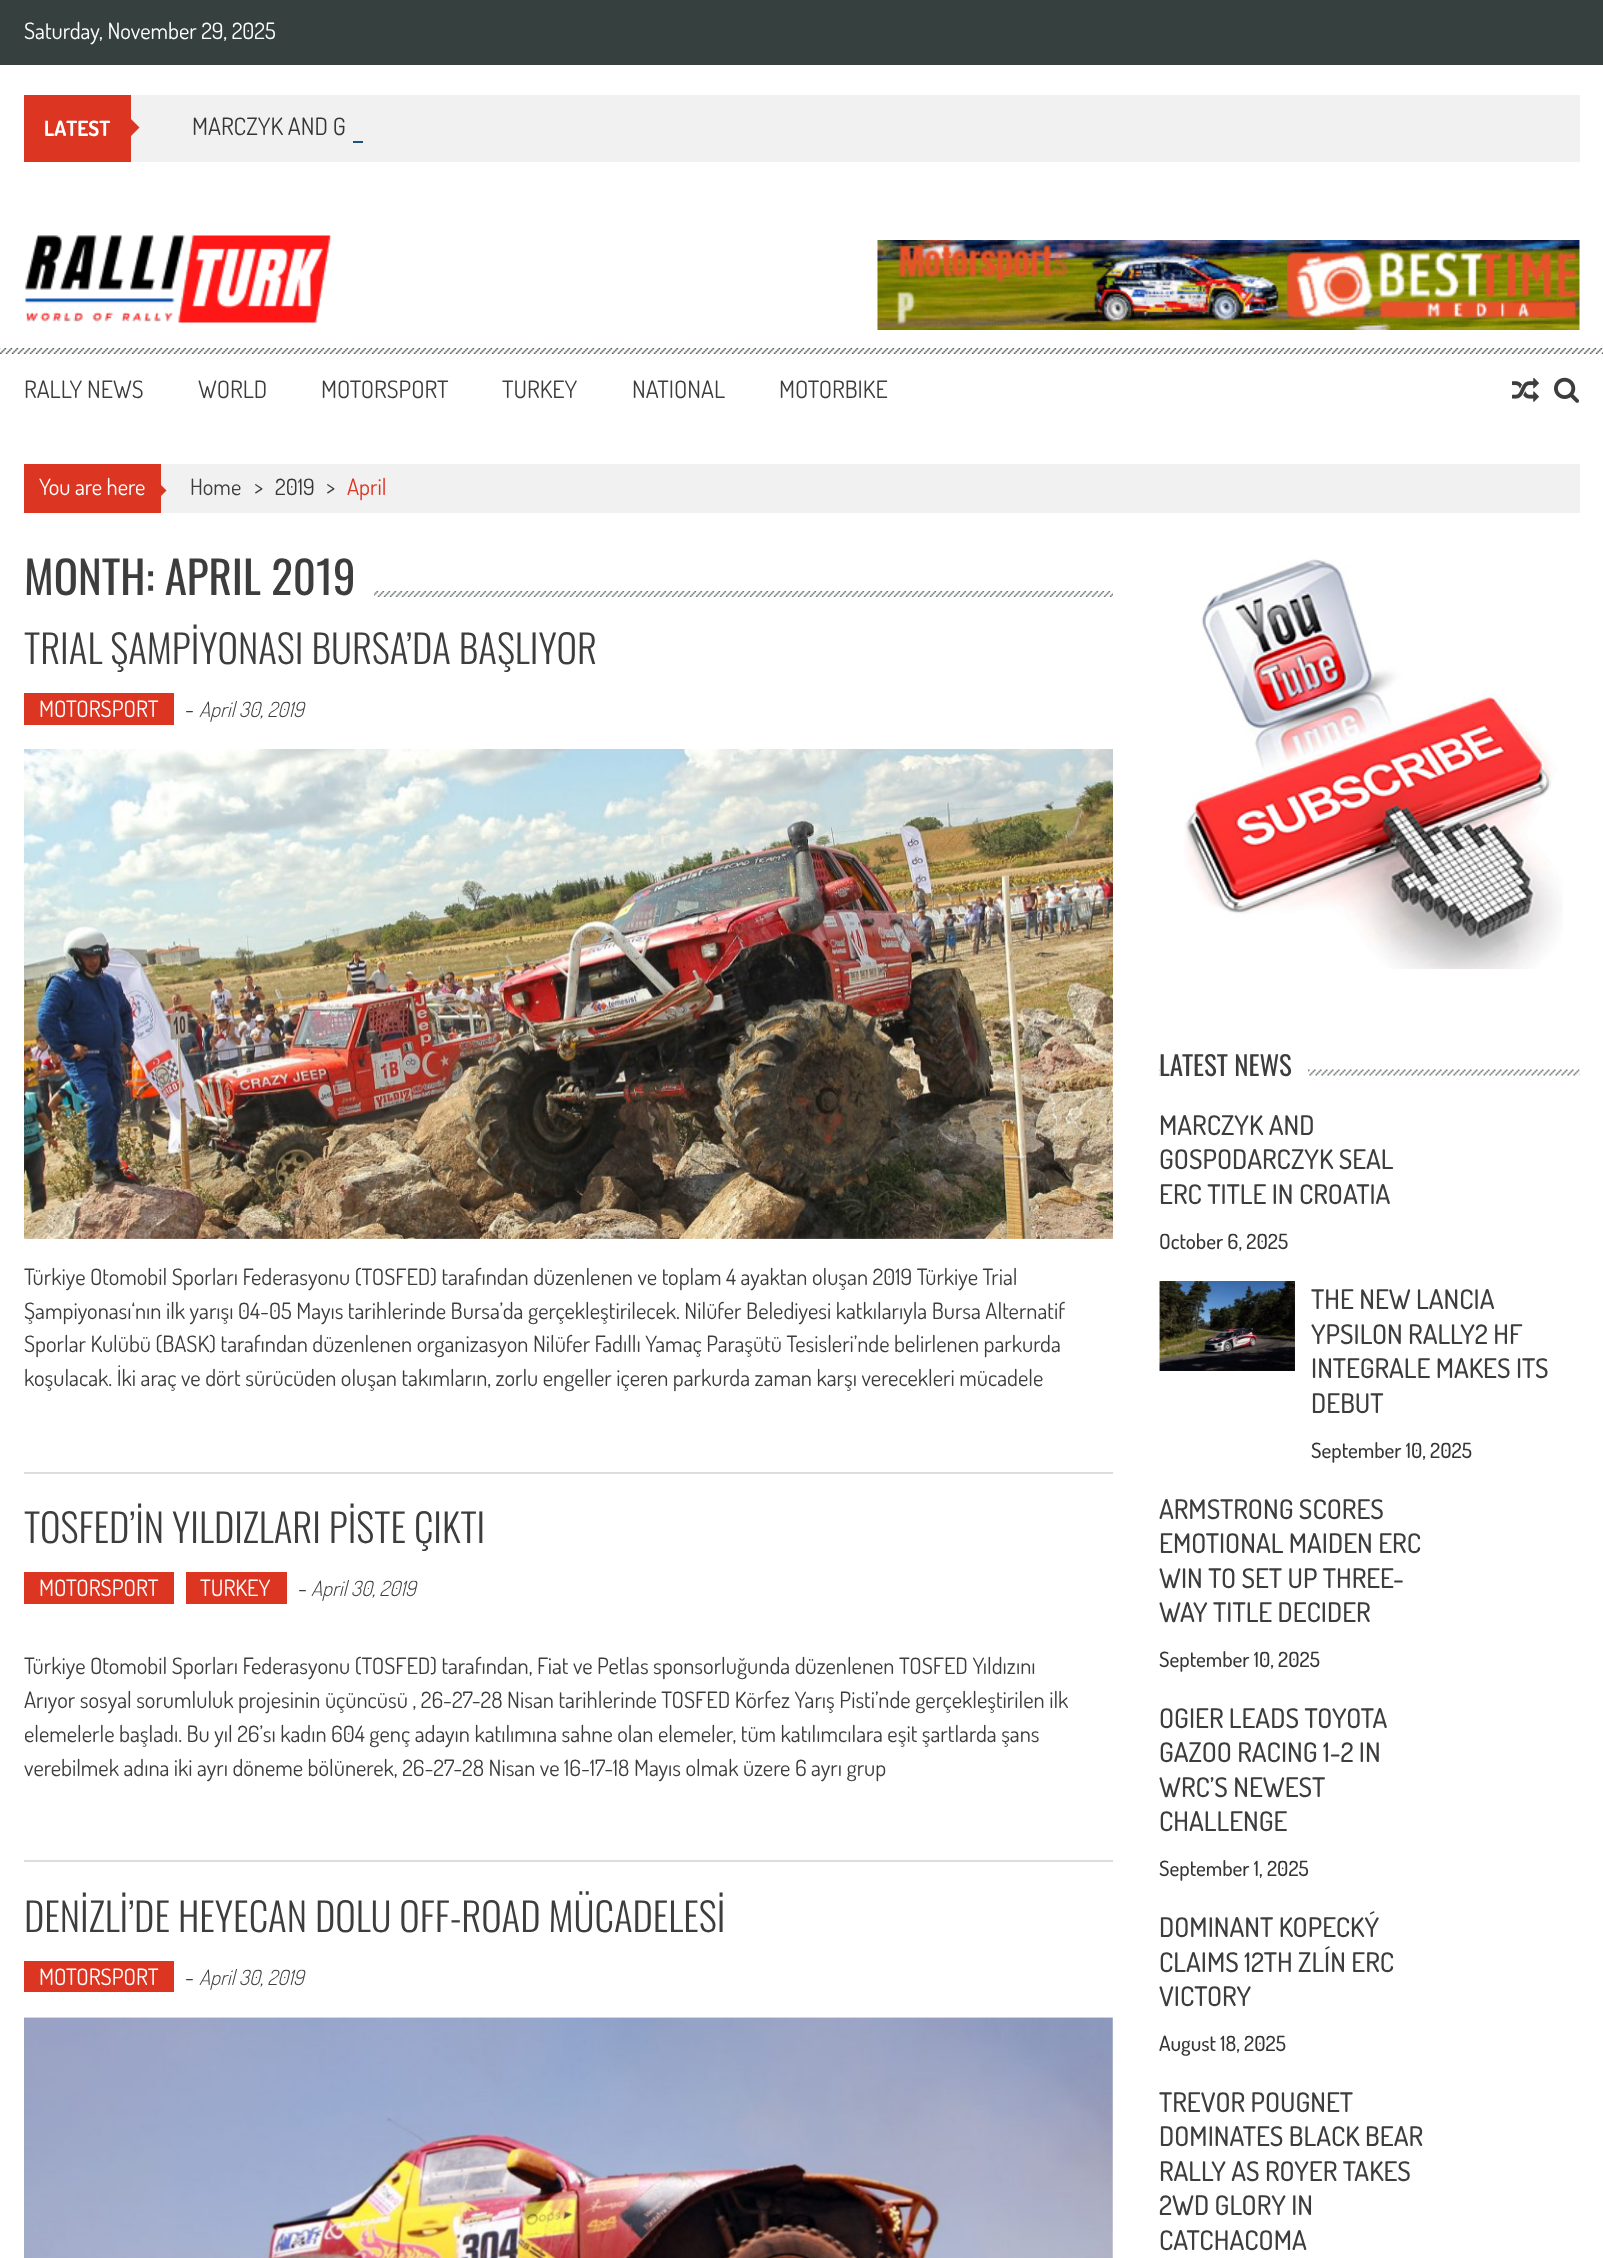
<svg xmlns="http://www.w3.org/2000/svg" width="1603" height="2258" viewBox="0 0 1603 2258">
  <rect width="100%" height="100%" fill="#fff"/>
  <path d="M0 0h1603v65H0z" fill="#36403f"/>
  <path d="M131 95h1449v67H131z" fill="#f1f1f1"/>
  <path d="M24 95h107v67H24z" fill="#dc3522"/>
  <path d="M130.5 136.5V118.5L139.5 127.5Z" fill="#dc3522"/>
  <path d="M353 141h10v2H353z" fill="#1f527b"/>
  <image x="0" y="348" width="1603" height="6" href="img/1.png"/>
  <image x="25" y="235" width="306" height="88" href="img/2.png"/>
  <image x="877" y="240" width="703" height="90" href="img/3.png"/>
  <image x="1512" y="377" width="27" height="25" href="img/4.png"/>
  <image x="1554" y="377" width="25" height="26" href="img/5.png"/>
  <path d="M161 464h1419v49H161z" fill="#f1f1f1"/>
  <path d="M24 464h137v49H24z" fill="#dc3522"/>
  <path d="M159 498V483L166.5 490.5Z" fill="#dc3522"/>
  <image x="374" y="591" width="739" height="6" href="img/6.png"/>
  <path d="M24 1472h1089v2H24z" fill="#ddd"/>
  <path d="M24 693h150v32H24z" fill="#dc3522"/>
  <image x="24" y="749" width="1089" height="490" href="img/7.png"/>
  <path d="M24 1860h1089v2H24z" fill="#ddd"/>
  <path d="M24 1572h150v32H24z" fill="#dc3522"/>
  <path d="M186 1572h101v32H186z" fill="#dc3522"/>
  <path d="M24 1961h150v31H24z" fill="#dc3522"/>
  <image x="24" y="2017" width="1089" height="241" href="img/8.png"/>
  <image x="1184" y="558" width="379" height="411" href="img/9.png"/>
  <image x="1159" y="1069" width="421" height="7" href="img/10.png"/>
  <path d="M1160 1069h148v7H1160z" fill="#fff"/>
  <image x="1159" y="1281" width="136" height="90" href="img/11.png"/>
  <text x="24" y="39" font-family="Dosis" font-size="22.5" fill="#fff">Saturday, November 29, 2025</text>
  <text x="44" y="136" font-family="Dosis" font-size="21" font-weight="bold" fill="#fff">LATEST</text>
  <text x="192" y="135" font-family="Dosis" font-size="24" fill="#363636">MARCZYK AND G</text>
  <g font-family="Dosis" font-size="24" fill="#3d3d3d">
    <text x="24" y="398">RALLY NEWS</text>
    <text x="198" y="398">WORLD</text>
    <text x="321" y="398">MOTORSPORT</text>
    <text x="502" y="398">TURKEY</text>
    <text x="632" y="398">NATIONAL</text>
    <text x="779" y="398">MOTORBIKE</text>
  </g>
  <text x="39" y="495" font-family="Dosis" font-size="22.5" fill="#fff">You are here</text>
  <g font-family="Dosis" font-size="22.5" fill="#3d3d3d">
    <text x="190" y="495">Home</text>
    <text x="254" y="495">&gt;</text>
  </g>
  <text x="275" y="495" font-family="Dosis" font-size="22.5" fill="#363636">2019</text>
  <text x="326" y="495" font-family="Dosis" font-size="22.5" fill="#3d3d3d">&gt;</text>
  <text x="347" y="495" font-family="Dosis" font-size="22.5" fill="#dc3522">April</text>
  <text x="24" y="595" font-family="Oswald" font-size="45" fill="#3d3d3d">MONTH: APRIL 2019</text>
  <text x="24" y="664" font-family="Oswald" font-size="39" font-weight="300" fill="#3d3d3d">TRIAL ŞAMPİYONASI BURSA’DA BAŞLIYOR</text>
  <text x="39" y="717" font-family="Dosis" font-size="22.5" fill="#fff">MOTORSPORT</text>
  <text x="185" y="717" font-family="Dosis" font-size="22.5" fill="#3d3d3d">-</text>
  <text x="199" y="717" font-family="Dosis" font-size="21" font-weight="300" font-style="italic" fill="#3d3d3d">April 30, 2019</text>
  <g font-family="Dosis" font-size="22.5" fill="#3d3d3d">
    <text x="24" y="1285">Türkiye Otomobil Sporları Federasyonu (TOSFED) tarafından düzenlenen ve toplam 4 ayaktan oluşan 2019 Türkiye Trial</text>
    <text x="24" y="1319">Şampiyonası‘nın ilk yarışı 04-05 Mayıs tarihlerinde Bursa’da gerçekleştirilecek. Nilüfer Belediyesi katkılarıyla Bursa Alternatif</text>
    <text x="24" y="1352">Sporlar Kulübü (BASK) tarafından düzenlenen organizasyon Nilüfer Fadıllı Yamaç Paraşütü Tesisleri’nde belirlenen parkurda</text>
    <text x="24" y="1386">koşulacak. İki araç ve dört sürücüden oluşan takımların, zorlu engeller içeren parkurda zaman karşı verecekleri mücadele</text>
  </g>
  <text x="24" y="1543" font-family="Oswald" font-size="39" font-weight="300" fill="#3d3d3d">TOSFED’İN YILDIZLARI PİSTE ÇIKTI</text>
  <g font-family="Dosis" font-size="22.5" fill="#fff">
    <text x="39" y="1596">MOTORSPORT</text>
    <text x="200" y="1596">TURKEY</text>
  </g>
  <text x="298" y="1596" font-family="Dosis" font-size="22.5" fill="#3d3d3d">-</text>
  <text x="311" y="1596" font-family="Dosis" font-size="21" font-weight="300" font-style="italic" fill="#3d3d3d">April 30, 2019</text>
  <g font-family="Dosis" font-size="22.5" fill="#3d3d3d">
    <text x="24" y="1674">Türkiye Otomobil Sporları Federasyonu (TOSFED) tarafından, Fiat ve Petlas sponsorluğunda düzenlenen TOSFED Yıldızını</text>
    <text x="24" y="1708">Arıyor sosyal sorumluluk projesinin üçüncüsü , 26-27-28 Nisan tarihlerinde TOSFED Körfez Yarış Pisti’nde gerçekleştirilen ilk</text>
    <text x="24" y="1742">elemelerle başladı. Bu yıl 26’sı kadın 604 genç adayın katılımına sahne olan elemeler, tüm katılımcılara eşit şartlarda şans</text>
    <text x="24" y="1776">verebilmek adına iki ayrı döneme bölünerek, 26-27-28 Nisan ve 16-17-18 Mayıs olmak üzere 6 ayrı grup</text>
  </g>
  <text x="24" y="1932" font-family="Oswald" font-size="39" font-weight="300" fill="#3d3d3d">DENİZLİ’DE HEYECAN DOLU OFF-ROAD MÜCADELESİ</text>
  <text x="39" y="1985" font-family="Dosis" font-size="22.5" fill="#fff">MOTORSPORT</text>
  <text x="185" y="1985" font-family="Dosis" font-size="22.5" fill="#3d3d3d">-</text>
  <text x="199" y="1985" font-family="Dosis" font-size="21" font-weight="300" font-style="italic" fill="#3d3d3d">April 30, 2019</text>
  <text x="1159" y="1076" font-family="Oswald" font-size="27" fill="#3d3d3d">LATEST NEWS</text>
  <g font-family="Dosis" font-size="27" font-weight="500" fill="#3d3d3d">
    <text x="1159" y="1135">MARCZYK AND</text>
    <text x="1159" y="1169">GOSPODARCZYK SEAL</text>
    <text x="1159" y="1204">ERC TITLE IN CROATIA</text>
  </g>
  <text x="1159" y="1249" font-family="Dosis" font-size="21" font-weight="500" fill="#363636">October 6, 2025</text>
  <g font-family="Dosis" font-size="27" font-weight="500" fill="#3d3d3d">
    <text x="1311" y="1309">THE NEW LANCIA</text>
    <text x="1311" y="1344">YPSILON RALLY2 HF</text>
    <text x="1311" y="1378">INTEGRALE MAKES ITS</text>
    <text x="1311" y="1413">DEBUT</text>
  </g>
  <text x="1311" y="1458" font-family="Dosis" font-size="21" font-weight="500" fill="#363636">September 10, 2025</text>
  <g font-family="Dosis" font-size="27" font-weight="500" fill="#3d3d3d">
    <text x="1159" y="1519">ARMSTRONG SCORES</text>
    <text x="1159" y="1553">EMOTIONAL MAIDEN ERC</text>
    <text x="1159" y="1588">WIN TO SET UP THREE-</text>
    <text x="1159" y="1622">WAY TITLE DECIDER</text>
  </g>
  <text x="1159" y="1667" font-family="Dosis" font-size="21" font-weight="500" fill="#363636">September 10, 2025</text>
  <g font-family="Dosis" font-size="27" font-weight="500" fill="#3d3d3d">
    <text x="1159" y="1728">OGIER LEADS TOYOTA</text>
    <text x="1159" y="1762">GAZOO RACING 1-2 IN</text>
    <text x="1159" y="1797">WRC’S NEWEST</text>
    <text x="1159" y="1831">CHALLENGE</text>
  </g>
  <text x="1159" y="1876" font-family="Dosis" font-size="21" font-weight="500" fill="#363636">September 1, 2025</text>
  <g font-family="Dosis" font-size="27" font-weight="500" fill="#3d3d3d">
    <text x="1159" y="1937">DOMINANT KOPECKÝ</text>
    <text x="1159" y="1972">CLAIMS 12TH ZLÍN ERC</text>
    <text x="1159" y="2006">VICTORY</text>
  </g>
  <text x="1159" y="2051" font-family="Dosis" font-size="21" font-weight="500" fill="#363636">August 18, 2025</text>
  <g font-family="Dosis" font-size="27" font-weight="500" fill="#3d3d3d">
    <text x="1159" y="2112">TREVOR POUGNET</text>
    <text x="1159" y="2146">DOMINATES BLACK BEAR</text>
    <text x="1159" y="2181">RALLY AS ROYER TAKES</text>
    <text x="1159" y="2215">2WD GLORY IN</text>
    <text x="1159" y="2250">CATCHACOMA</text>
  </g>
</svg>
